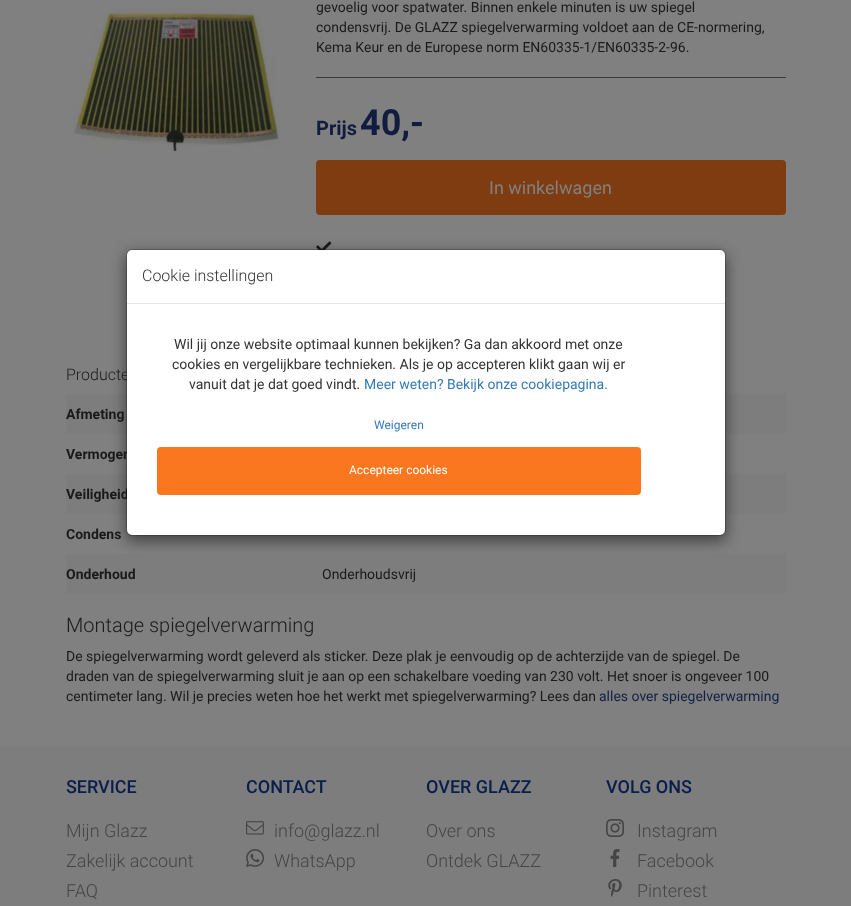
<svg xmlns="http://www.w3.org/2000/svg" width="851" height="906" viewBox="0 0 851 906">
  <rect width="100%" height="100%" fill="#808080"/>
  <image x="73" y="8" width="208" height="144" href="img/1.png"/>
  <path d="M316 77h470v1H316z" fill="#383838"/>
  <rect x="316" y="160" width="470" height="55" rx="4" fill="#7e3c10"/>
  <image x="316" y="241" width="16" height="9" href="img/2.png"/>
  <path d="M66 394h720v40H66z" fill="#7d7d7d"/>
  <path d="M66 474h720v40H66z" fill="#7d7d7d"/>
  <path d="M66 554h720v40H66z" fill="#7d7d7d"/>
  <path d="M0 746h851v160H0z" fill="#7d7d7d"/>
  <image x="246" y="821" width="18" height="14" href="img/3.png"/>
  <image x="246" y="849" width="18" height="18" href="img/4.png"/>
  <image x="606" y="819" width="18" height="18" href="img/5.png"/>
  <image x="610" y="849" width="10" height="18" href="img/6.png"/>
  <image x="608" y="879" width="14" height="18" href="img/7.png"/>
  <rect x="126" y="254" width="600" height="287" rx="6" fill="#00000080" filter="blur(7.5px)"/>
  <g font-family="Roboto" font-size="14" fill="#1a1a1a">
    <text x="316" y="12">gevoelig voor spatwater. Binnen enkele minuten is uw spiegel</text>
    <text x="316" y="32">condensvrij. De GLAZZ spiegelverwarming voldoet aan de CE-normering,</text>
    <text x="316" y="52">Kema Keur en de Europese norm EN60335-1/EN60335-2-96.</text>
  </g>
  <text x="316" y="135" font-family="Roboto" font-size="20" font-weight="bold" fill="#121c3f">Prijs</text>
  <text x="360" y="135" font-family="Roboto" font-size="36" font-weight="bold" fill="#121c3f">40,-</text>
  <text x="489" y="194" font-family="Roboto" font-size="18" fill="#808080">In winkelwagen</text>
  <text x="66" y="380" font-family="Roboto" font-size="16" font-weight="300" fill="#1a1a1a">Producte</text>
  <g font-family="Roboto" font-size="14" font-weight="bold" fill="#1a1a1a">
    <text x="66" y="419">Afmeting</text>
    <text x="66" y="459">Vermogen</text>
    <text x="66" y="499">Veiligheid</text>
    <text x="66" y="539">Condens</text>
    <text x="66" y="579">Onderhoud</text>
  </g>
  <text x="322" y="579" font-family="Roboto" font-size="14" fill="#1a1a1a">Onderhoudsvrij</text>
  <text x="66" y="632" font-family="Roboto" font-size="20" font-weight="300" fill="#1a1a1a">Montage spiegelverwarming</text>
  <g font-family="Roboto" font-size="14" fill="#1a1a1a">
    <text x="66" y="661">De spiegelverwarming wordt geleverd als sticker. Deze plak je eenvoudig op de achterzijde van de spiegel. De</text>
    <text x="66" y="681">draden van de spiegelverwarming sluit je aan op een schakelbare voeding van 230 volt. Het snoer is ongeveer 100</text>
    <text x="66" y="701">centimeter lang. Wil je precies weten hoe het werkt met spiegelverwarming? Lees dan</text>
  </g>
  <text x="599" y="701" font-family="Roboto" font-size="14" fill="#102045">alles over spiegelverwarming</text>
  <text x="66" y="793" font-family="Roboto" font-size="18" font-weight="500" fill="#0a1e4d">SERVICE</text>
  <g font-family="Roboto" font-size="18" font-weight="300" fill="#454545">
    <text x="66" y="837">Mijn Glazz</text>
    <text x="66" y="867">Zakelijk account</text>
    <text x="66" y="897">FAQ</text>
  </g>
  <text x="246" y="793" font-family="Roboto" font-size="18" font-weight="500" fill="#0a1e4d">CONTACT</text>
  <g font-family="Roboto" font-size="18" font-weight="300" fill="#454545">
    <text x="274" y="837">info@glazz.nl</text>
    <text x="274" y="867">WhatsApp</text>
  </g>
  <text x="426" y="793" font-family="Roboto" font-size="18" font-weight="500" fill="#0a1e4d">OVER GLAZZ</text>
  <g font-family="Roboto" font-size="18" font-weight="300" fill="#454545">
    <text x="426" y="837">Over ons</text>
    <text x="426" y="867">Ontdek GLAZZ</text>
  </g>
  <text x="606" y="793" font-family="Roboto" font-size="18" font-weight="500" fill="#0a1e4d">VOLG ONS</text>
  <g font-family="Roboto" font-size="18" font-weight="300" fill="#454545">
    <text x="637" y="837">Instagram</text>
    <text x="637" y="867">Facebook</text>
    <text x="637" y="897">Pinterest</text>
  </g>
  <rect x="127" y="250" width="598" height="285" rx="5" fill="#fff"/>
  <rect x="126.5" y="249.5" width="599" height="286" rx="5.5" fill="none" stroke="#00000033"/>
  <path d="M127 303h598v1H127z" fill="#e5e5e5"/>
  <text x="142" y="281" font-family="Roboto" font-size="16" font-weight="300" fill="#333">Cookie instellingen</text>
  <g font-family="Roboto" font-size="14" fill="#333">
    <text x="174" y="349">Wil jij onze website optimaal kunnen bekijken? Ga dan akkoord met onze</text>
    <text x="172" y="369">cookies en vergelijkbare technieken. Als je op accepteren klikt gaan wij er</text>
    <text x="189" y="389">vanuit dat je dat goed vindt.</text>
  </g>
  <text x="364" y="389" font-family="Roboto" font-size="14" fill="#337ab7">Meer weten? Bekijk onze cookiepagina.</text>
  <text x="374" y="429" font-family="Roboto" font-size="12" fill="#337ab7">Weigeren</text>
  <rect x="157" y="447" width="484" height="48" rx="4" fill="#fb771f"/>
  <text x="349" y="474" font-family="Roboto" font-size="12" fill="#fff">Accepteer cookies</text>
</svg>
